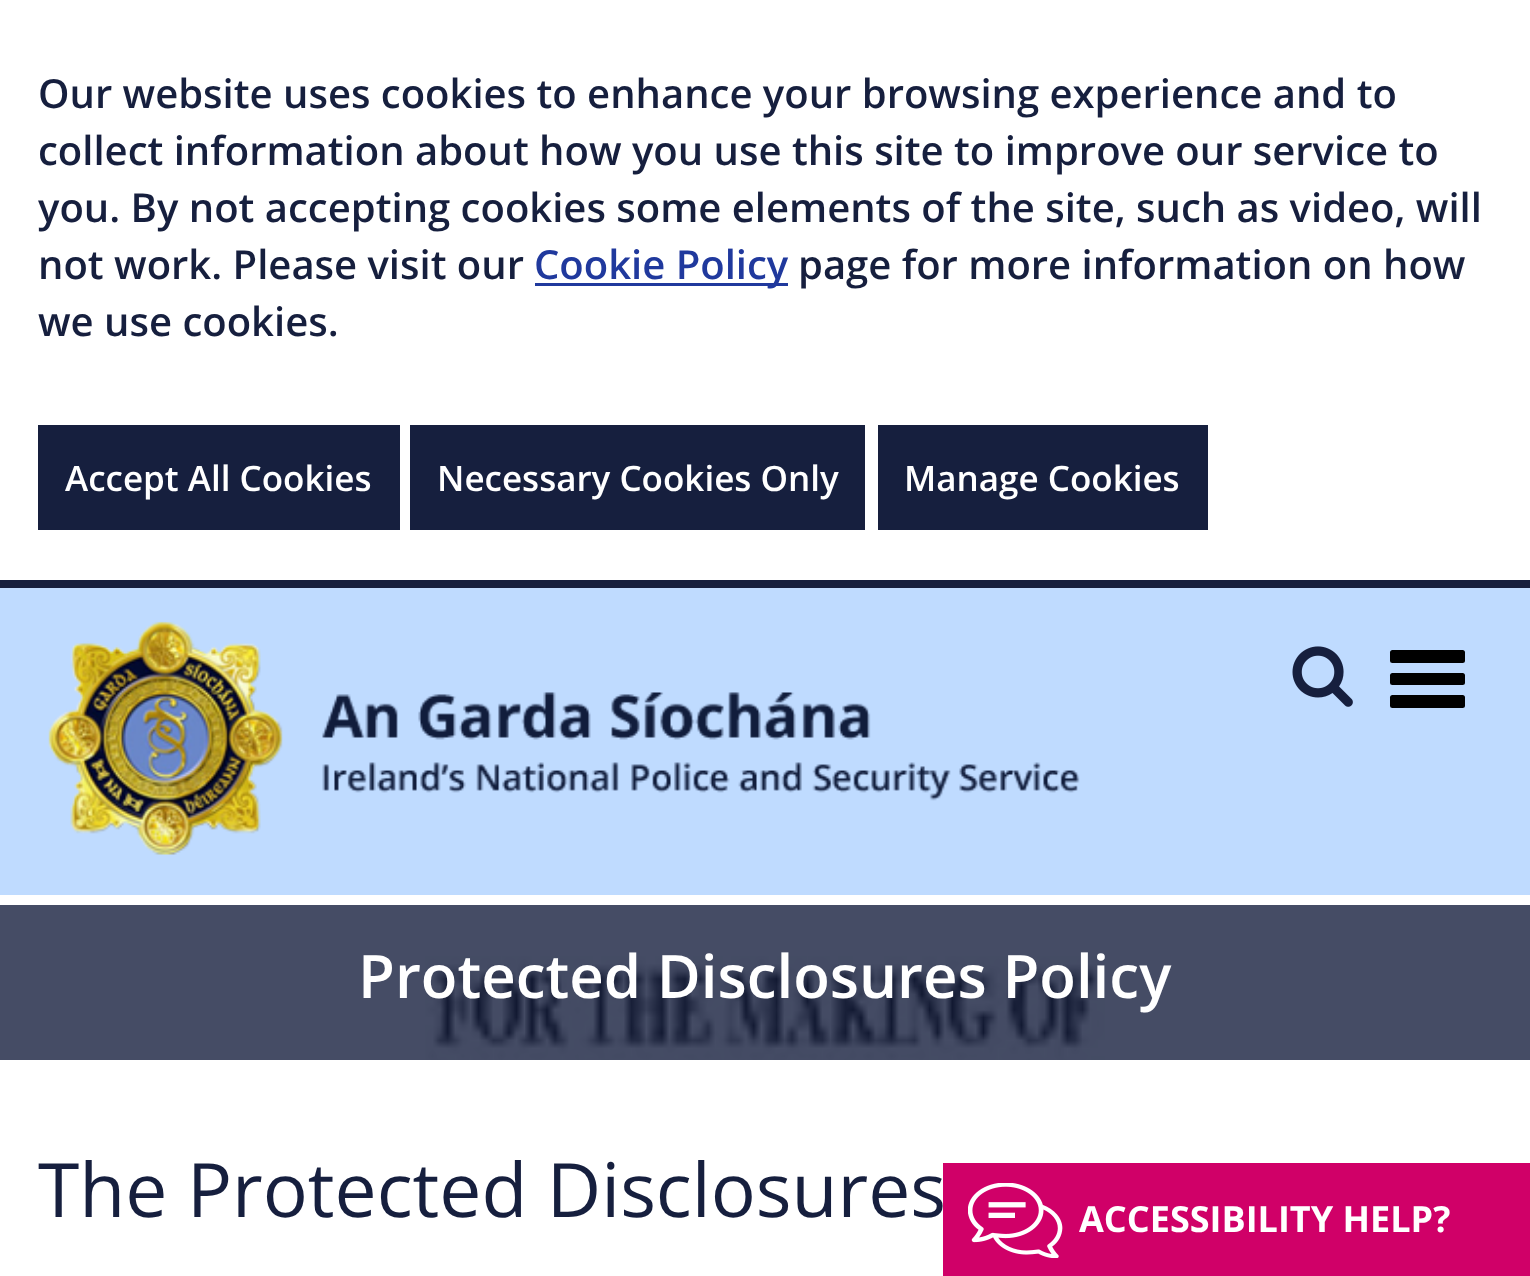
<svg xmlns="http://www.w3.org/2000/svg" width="1530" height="1276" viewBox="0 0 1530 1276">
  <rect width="100%" height="100%" fill="#fff"/>
  <path d="M0 580h1530v8H0z" fill="#161f3e"/>
  <path d="M535 283h253v3H535z" fill="#20399d"/>
  <path d="M38 425h362v105H38z" fill="#161f3e"/>
  <path d="M410 425h455v105H410z" fill="#161f3e"/>
  <path d="M878 425h330v105H878z" fill="#161f3e"/>
  <path d="M0 588h1530v307H0z" fill="#bfdbff"/>
  <image x="48" y="621" width="1032" height="234" href="img/1.png"/>
  <image x="1292" y="646" width="61" height="61" href="img/2.png"/>
  <rect x="1390" y="650" width="75" height="13" rx="2.5" fill="#000"/>
  <rect x="1390" y="673" width="75" height="12" rx="2.5" fill="#000"/>
  <rect x="1390" y="695" width="75" height="13" rx="2.5" fill="#000"/>
  <image x="0" y="905" width="1530" height="155" href="img/3.png"/>
  <path d="M943 1163h587v113H943z" fill="#d00068"/>
  <image x="968" y="1183" width="95" height="75" href="img/4.png"/>
  <g font-family="Open Sans" font-size="40" font-weight="600" fill="#161f3e">
    <text x="38" y="108">Our website uses cookies to enhance your browsing experience and to</text>
    <text x="38" y="165">collect information about how you use this site to improve our service to</text>
    <text x="38" y="222">you. By not accepting cookies some elements of the site, such as video, will</text>
    <text x="38" y="279">not work. Please visit our</text>
  </g>
  <text x="534" y="279" font-family="Open Sans" font-size="40" font-weight="600" fill="#20399d">Cookie Policy</text>
  <g font-family="Open Sans" font-size="40" font-weight="600" fill="#161f3e">
    <text x="798" y="279">page for more information on how</text>
    <text x="38" y="336">we use cookies.</text>
  </g>
  <g font-family="Open Sans" font-size="35" font-weight="600" fill="#fff">
    <text x="65" y="491">Accept All Cookies</text>
    <text x="437" y="491">Necessary Cookies Only</text>
    <text x="904" y="491">Manage Cookies</text>
  </g>
  <text x="358" y="998" font-family="Open Sans" font-size="60" font-weight="600" fill="#fff">Protected Disclosures Policy</text>
  <text x="38" y="1217" font-family="Open Sans" font-size="75" fill="#161f3e">The Protected Disclosures</text>
  <text x="1079" y="1232" font-family="Open Sans" font-size="36" font-weight="bold" fill="#fff">ACCESSIBILITY HELP?</text>
</svg>
